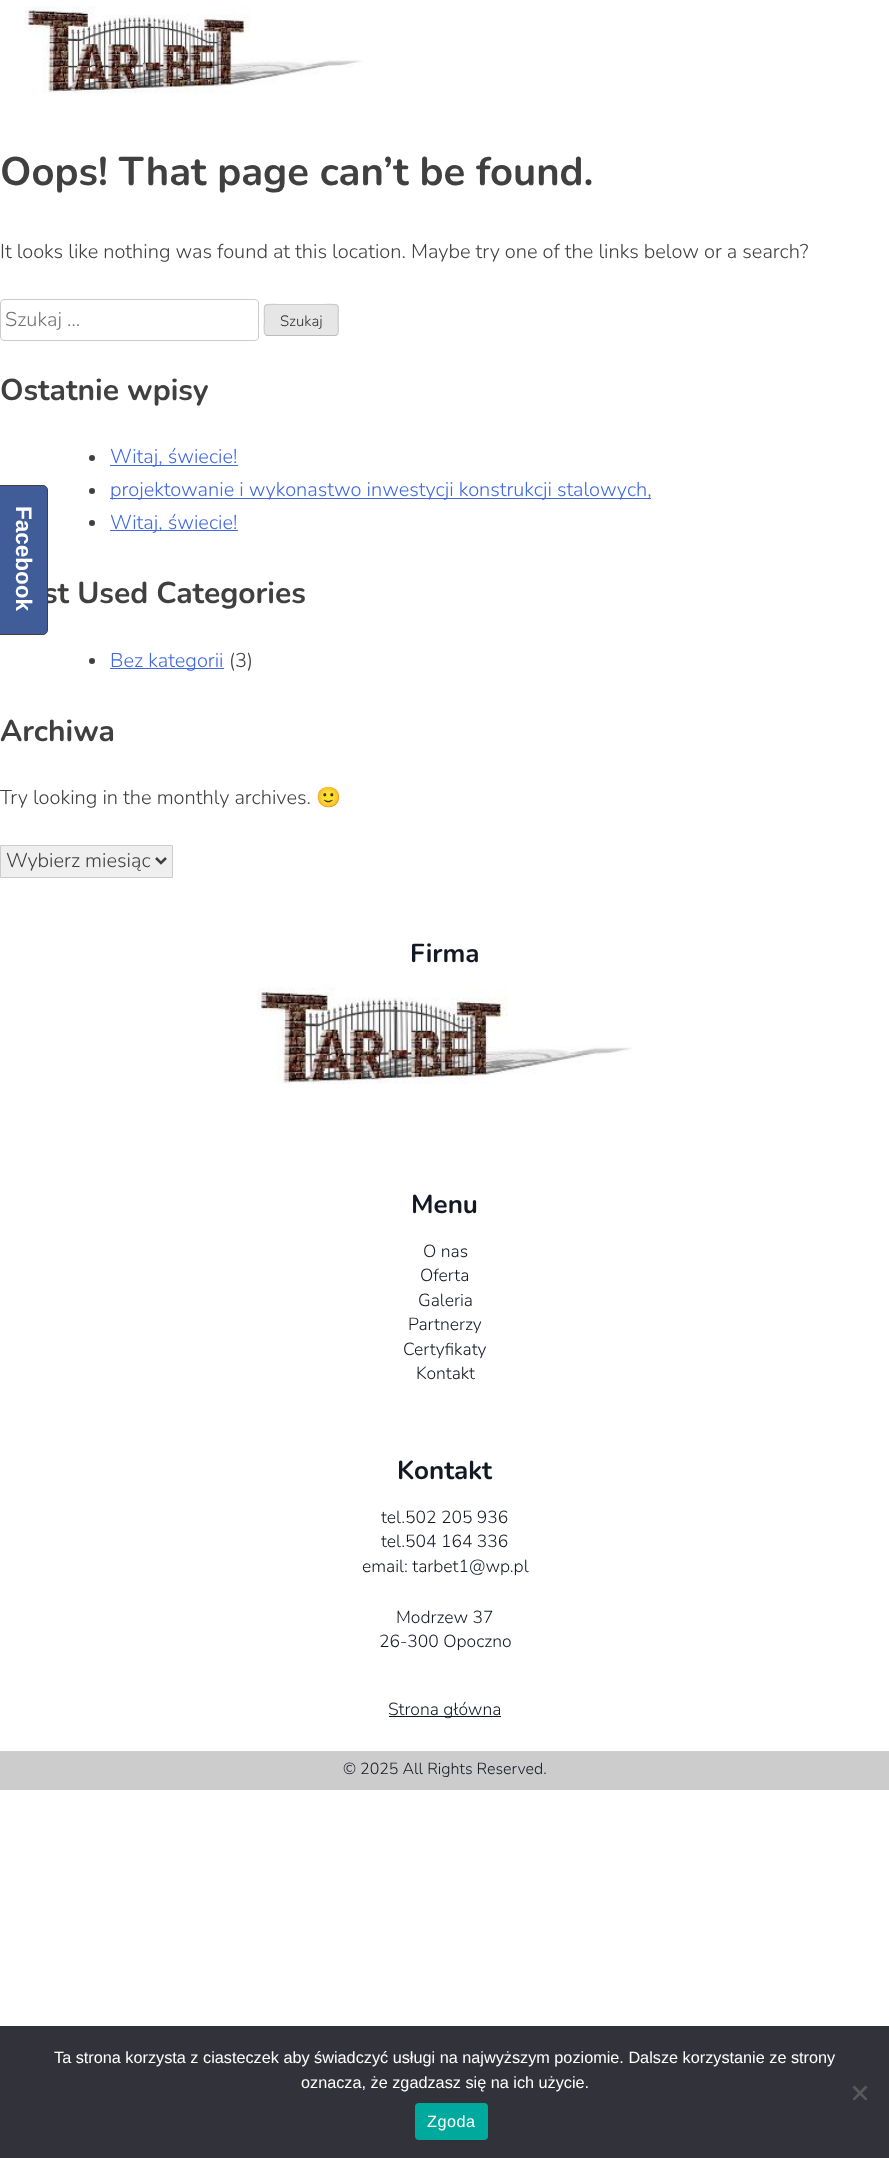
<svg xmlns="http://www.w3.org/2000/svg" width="889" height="2158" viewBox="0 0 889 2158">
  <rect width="100%" height="100%" fill="#fff"/>
  <image x="25" y="6" width="337" height="88" href="img/1.png"/>
  <rect x="0.5" y="299.5" width="258" height="41" rx="3.5" fill="none" stroke="#ccc"/>
  <rect x="264" y="304" width="75" height="32" rx="4" fill="#e6e6e6"/>
  <path d="M337 334.5L335.5 335.5H267L265.5 334.5" fill="none" stroke="#bbb" stroke-width="1.2"/>
  <path d="M265.5 334.5C263 332.5 264.5 323 264.5 320C264.5 302.5 261 304.5 279 304.5H324C341.5 304.5 338 302.5 338 320C338 323 339.5 332.5 337 334.5" fill="none" stroke="#ccc" stroke-width="1.2"/>
  <circle cx="92" cy="458" r="3" fill="#404040"/>
  <path d="M110 465h128v1H110z" fill="#4169e1"/>
  <circle cx="92" cy="491" r="3" fill="#404040"/>
  <path d="M110 498h541v1H110z" fill="#4169e1"/>
  <circle cx="92" cy="523" r="3" fill="#404040"/>
  <path d="M110 530h128v1H110z" fill="#4169e1"/>
  <circle cx="92" cy="661" r="3" fill="#404040"/>
  <path d="M110 668h114v1H110z" fill="#4169e1"/>
  <path d="M0.5 845.5h172v32H0.5z" fill="#efefef" stroke="#ccc"/>
  <path d="M156 858L161 863L166 858" fill="none" stroke="#404040" stroke-width="2.5"/>
  <image x="257" y="987" width="376" height="97" href="img/2.png"/>
  <path d="M389 1716h112v1H389z" fill="#141824"/>
  <path d="M0 1751h889v39H0z" fill="#ccc"/>
  <path d="M0 2026h889v132H0z" fill="#32323a"/>
  <path d="M865.5 2085.5L867.5 2087.5L854.5 2100.5L852.5 2099Z" fill="#59595d"/>
  <path d="M852.5 2087.5L854.5 2085.5L867.5 2099L865.5 2100.5Z" fill="#59595d"/>
  <rect x="415" y="2103" width="73" height="37" rx="4" fill="#00a99d"/>
  <text x="0" y="185" font-family="Nunito" font-size="40" font-weight="bold" fill="#404040">Oops! That page can’t be found.</text>
  <text x="0" y="258" font-family="Nunito" font-size="20" font-weight="300" fill="#404040">It looks like nothing was found at this location. Maybe try one of the links below or a search?</text>
  <text x="5" y="326" font-family="Nunito" font-size="20" font-weight="300" fill="#757575">Szukaj …</text>
  <text x="280" y="326" font-family="Nunito" font-size="15" font-weight="300" fill="#2e2e2e">Szukaj</text>
  <text x="0" y="400" font-family="Nunito" font-size="30" font-weight="bold" fill="#404040">Ostatnie wpisy</text>
  <g font-family="Nunito" font-size="20" font-weight="300" fill="#4169e1">
    <text x="110" y="463">Witaj, świecie!</text>
    <text x="110" y="496">projektowanie i wykonastwo inwestycji konstrukcji stalowych,</text>
    <text x="110" y="529">Witaj, świecie!</text>
  </g>
  <text x="43" y="603" font-family="Nunito" font-size="30" font-weight="bold" fill="#404040">st Used Categories</text>
  <text x="110" y="667" font-family="Nunito" font-size="20" font-weight="300" fill="#4169e1">Bez kategorii</text>
  <text x="229" y="667" font-family="Nunito" font-size="20" font-weight="300" fill="#404040">(3)</text>
  <text x="0" y="741" font-family="Nunito" font-size="30" font-weight="bold" fill="#404040">Archiwa</text>
  <text x="0" y="804" font-family="Nunito" font-size="20" font-weight="300" fill="#404040">Try looking in the monthly archives.</text>
  <text x="316" y="804" font-family="Noto Color Emoji" font-size="20" fill="#404040">🙂</text>
  <text x="6" y="867" font-family="Nunito" font-size="20" font-weight="300" fill="#404040">Wybierz miesiąc</text>
  <g font-family="Nunito" font-size="26" font-weight="bold" fill="#141824">
    <text x="410" y="962">Firma</text>
    <text x="411" y="1213">Menu</text>
  </g>
  <g font-family="Nunito" font-size="17.5" font-weight="300" fill="#141824">
    <text x="423" y="1257">O nas</text>
    <text x="420" y="1281">Oferta</text>
    <text x="418" y="1306">Galeria</text>
    <text x="408" y="1330">Partnerzy</text>
    <text x="403" y="1355">Certyfikaty</text>
    <text x="416" y="1379">Kontakt</text>
  </g>
  <text x="397" y="1479" font-family="Nunito" font-size="26" font-weight="bold" fill="#141824">Kontakt</text>
  <g font-family="Nunito" font-size="17.5" font-weight="300" fill="#141824">
    <text x="381" y="1523">tel.502 205 936</text>
    <text x="381" y="1547">tel.504 164 336</text>
    <text x="362" y="1572">email: tarbet1@wp.pl</text>
    <text x="396" y="1623">Modrzew 37</text>
    <text x="379" y="1647">26-300 Opoczno</text>
    <text x="388" y="1715">Strona główna</text>
  </g>
  <text x="343" y="1774" font-family="Nunito" font-size="16" font-weight="300" fill="#141824">© 2025 All Rights Reserved.</text>
  <path d="M-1.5 485.5H43C45.5 485.5 47.5 487.5 47.5 490V630C47.5 632.5 45.5 634.5 43 634.5H-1.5Z" fill="#405d9a" stroke="#404040"/>
  <text x="16" y="506" transform="rotate(90 16 506)" font-family="Liberation Sans" font-size="22.5" font-weight="bold" fill="#fff">Facebook</text>
  <g font-family="Liberation Sans" font-size="16.25" fill="#fff">
    <text x="54" y="2063">Ta strona korzysta z ciasteczek aby świadczyć usługi na najwyższym poziomie. Dalsze korzystanie ze strony</text>
    <text x="301" y="2088">oznacza, że zgadzasz się na ich użycie.</text>
  </g>
  <text x="427" y="2127" font-family="Liberation Sans" font-size="16.25" letter-spacing="0.5" fill="#fff">Zgoda</text>
</svg>
